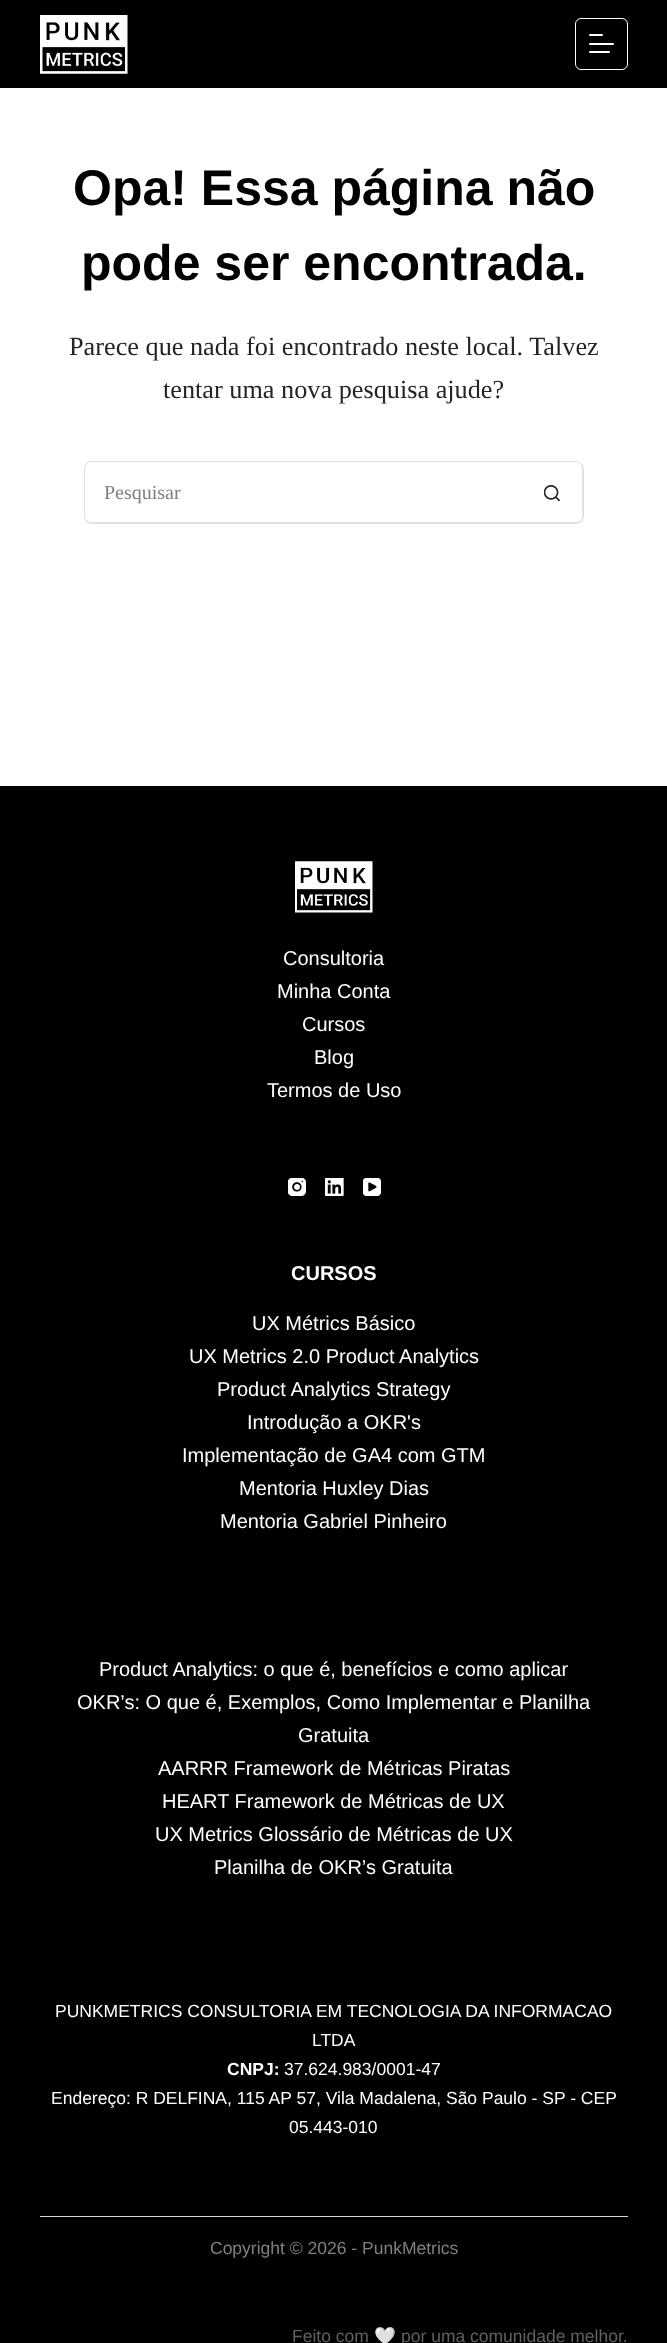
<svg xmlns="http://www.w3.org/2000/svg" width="667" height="2343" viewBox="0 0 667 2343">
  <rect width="100%" height="100%" fill="#fff"/>
  <path d="M0 0h667v88H0z" fill="#000"/>
  <image x="40" y="15" width="88" height="59" href="img/1.png"/>
  <rect x="575.5" y="18.5" width="52" height="51" rx="5.5" fill="none" stroke="#fff"/>
  <rect x="589" y="34" width="14" height="2" rx="1" fill="#fff"/>
  <rect x="589" y="43" width="25" height="2" rx="1" fill="#fff"/>
  <rect x="589" y="51" width="21" height="2" rx="1" fill="#fff"/>
  <path d="M91 461H521V524H91C87 524 84 520 84 516V469C84 465 87 461 91 461ZM91 462H521V522H91C88 522 85 520 85 516V469C85 465 88 462 91 462Z" fill="#e0e0e0" fill-rule="evenodd"/>
  <path d="M521 461H576C580 461 584 465 584 469V516C584 520 580 524 576 524H521ZM521 462H576C580 462 582 465 582 469V516C582 520 580 522 576 522H521Z" fill="#e0e0e0" fill-rule="evenodd"/>
  <image x="544" y="485" width="16" height="16" href="img/2.png"/>
  <path d="M0 786h667v1557H0z" fill="#000"/>
  <path d="M40 2216h588v1H40z" fill="#d2d7d9"/>
  <image x="295" y="861" width="78" height="52" href="img/3.png"/>
  <image x="288" y="1178" width="18" height="18" href="img/4.png"/>
  <image x="325" y="1178" width="19" height="18" href="img/5.png"/>
  <image x="363" y="1178" width="18" height="18" href="img/6.png"/>
  <g font-family="Liberation Sans" font-size="50" font-weight="bold" fill="#000">
    <text x="73" y="205">Opa! Essa página não</text>
    <text x="81" y="280">pode ser encontrada.</text>
  </g>
  <g font-family="Liberation Serif" font-size="26.25" fill="#242424">
    <text x="69" y="355">Parece que nada foi encontrado neste local. Talvez</text>
    <text x="163" y="398">tentar uma nova pesquisa ajude?</text>
  </g>
  <text x="104" y="499" font-family="Liberation Serif" font-size="20" fill="#808080">Pesquisar</text>
  <g font-family="Liberation Sans" font-size="20" fill="#fff">
    <text x="283" y="965">Consultoria</text>
    <text x="277" y="998">Minha Conta</text>
    <text x="302" y="1031">Cursos</text>
    <text x="314" y="1064">Blog</text>
    <text x="267" y="1097">Termos de Uso</text>
  </g>
  <text x="291" y="1280" font-family="Liberation Sans" font-size="20" font-weight="bold" fill="#fff">CURSOS</text>
  <g font-family="Liberation Sans" font-size="20" fill="#fff">
    <text x="252" y="1330">UX Métrics Básico</text>
    <text x="189" y="1363">UX Metrics 2.0 Product Analytics</text>
    <text x="217" y="1396">Product Analytics Strategy</text>
    <text x="247" y="1429">Introdução a OKR's</text>
    <text x="182" y="1462">Implementação de GA4 com GTM</text>
    <text x="239" y="1495">Mentoria Huxley Dias</text>
    <text x="220" y="1528">Mentoria Gabriel Pinheiro</text>
    <text x="99" y="1676">Product Analytics: o que é, benefícios e como aplicar</text>
    <text x="77" y="1709">OKR’s: O que é, Exemplos, Como Implementar e Planilha</text>
    <text x="298" y="1742">Gratuita</text>
    <text x="158" y="1775">AARRR Framework de Métricas Piratas</text>
    <text x="162" y="1808">HEART Framework de Métricas de UX</text>
    <text x="155" y="1841">UX Metrics Glossário de Métricas de UX</text>
    <text x="214" y="1874">Planilha de OKR’s Gratuita</text>
  </g>
  <g font-family="Liberation Sans" font-size="17.5" fill="#fff">
    <text x="55" y="2017">PUNKMETRICS CONSULTORIA EM TECNOLOGIA DA INFORMACAO</text>
    <text x="312" y="2046">LTDA</text>
  </g>
  <text x="227" y="2075" font-family="Liberation Sans" font-size="17.5" font-weight="bold" fill="#fff">CNPJ:</text>
  <g font-family="Liberation Sans" font-size="17.5" fill="#fff">
    <text x="284" y="2075">37.624.983/0001-47</text>
    <text x="51" y="2104">Endereço: R DELFINA, 115 AP 57, Vila Madalena, São Paulo - SP - CEP</text>
    <text x="289" y="2133">05.443-010</text>
  </g>
  <text x="210" y="2254" font-family="Liberation Sans" font-size="17.5" fill="#808080">Copyright © 2026 - PunkMetrics</text>
  <text x="292" y="2342" font-family="Liberation Sans" font-size="17.5" fill="#606060">Feito com</text>
  <text x="374" y="2342" font-family="Noto Color Emoji" font-size="17.5" fill="#606060">🤍</text>
  <text x="401" y="2342" font-family="Liberation Sans" font-size="17.5" fill="#606060">por uma comunidade melhor.</text>
</svg>
